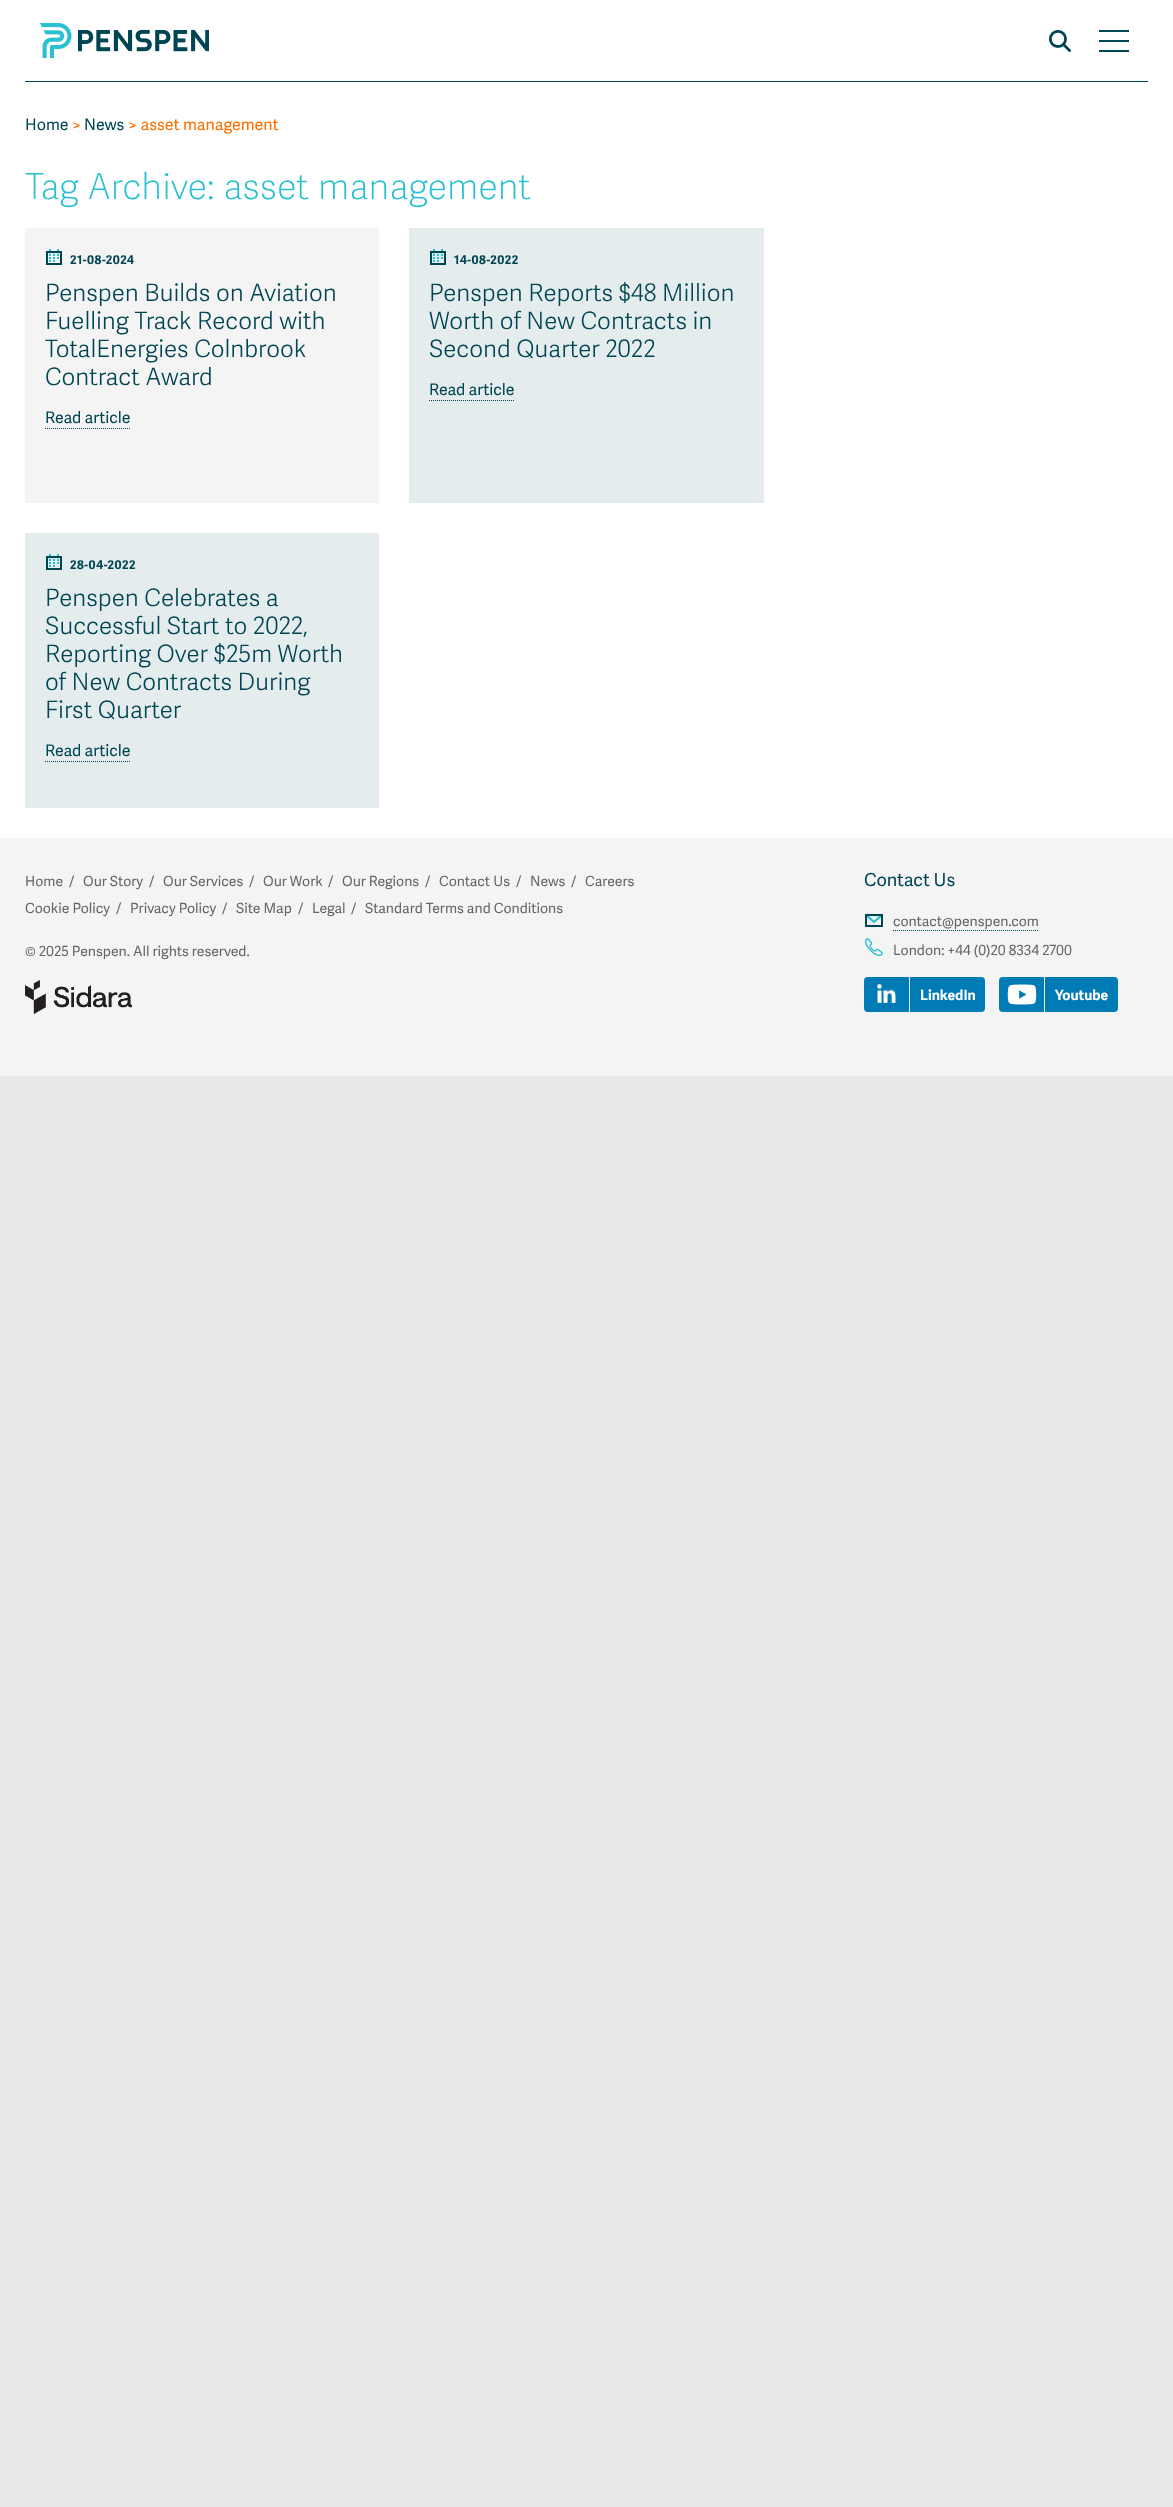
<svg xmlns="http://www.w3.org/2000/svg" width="1173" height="2507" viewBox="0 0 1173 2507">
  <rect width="100%" height="100%" fill="#e8e8e8"/>
  <path d="M0 0h1173v838H0z" fill="#fff"/>
  <image x="40" y="23" width="169" height="35" href="img/1.png"/>
  <image x="1049" y="30" width="22" height="22" href="img/2.png"/>
  <path d="M1099 30h30v2H1099z" fill="#004553"/>
  <path d="M1099 40h30v2H1099z" fill="#004553"/>
  <path d="M1099 50h30v2H1099z" fill="#004553"/>
  <path d="M25 81h1123v1H25z" fill="#004553"/>
  <path d="M25 228h354v275H25z" fill="#f4f4f4"/>
  <image x="46" y="249" width="16" height="16" href="img/3.png"/>
  <path d="M45 428.5H131" fill="none" stroke="#004553" stroke-dasharray="1 1"/>
  <path d="M409 228h355v275H409z" fill="#e5eced"/>
  <image x="430" y="249" width="16" height="16" href="img/4.png"/>
  <path d="M429 400.5H515" fill="none" stroke="#004553" stroke-dasharray="1 1"/>
  <path d="M25 533h354v275H25z" fill="#e5eced"/>
  <image x="46" y="554" width="16" height="16" href="img/4.png"/>
  <path d="M45 761.5H131" fill="none" stroke="#004553" stroke-dasharray="1 1"/>
  <path d="M0 838h1173v238H0z" fill="#f4f4f4"/>
  <image x="25" y="980" width="107" height="34" href="img/5.png"/>
  <image x="865" y="914" width="18" height="13" href="img/6.png"/>
  <path d="M893 930.5H1038" fill="none" stroke="#004553" stroke-dasharray="1 1"/>
  <image x="865" y="938" width="18" height="18" href="img/7.png"/>
  <rect x="864" y="977" width="121" height="35" rx="4" fill="#007bb6"/>
  <image x="877" y="984" width="19" height="19" href="img/8.png"/>
  <path d="M909 977h1v35H909z" fill="#f4f4f4"/>
  <rect x="999" y="977" width="119" height="35" rx="4" fill="#007bb6"/>
  <image x="1007" y="984" width="30" height="21" href="img/9.png"/>
  <path d="M1044 977h1v35H1044z" fill="#f4f4f4"/>
  <text x="25" y="130" font-family="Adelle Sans" font-size="16" fill="#004553">Home</text>
  <text x="72" y="130" font-family="Adelle Sans" font-size="16" fill="#ff6f00">&gt;</text>
  <text x="84" y="130" font-family="Adelle Sans" font-size="16" fill="#004553">News</text>
  <text x="128" y="130" font-family="Adelle Sans" font-size="16" fill="#ff6f00">&gt; asset management</text>
  <text x="25" y="199" font-family="Adelle Sans" font-size="36" font-weight="100" fill="#29c0d2">Tag Archive: asset management</text>
  <text x="70" y="264" font-family="Adelle Sans" font-size="12" font-weight="bold" letter-spacing="0.5" fill="#004553">21-08-2024</text>
  <g font-family="Adelle Sans" font-size="24" font-weight="300" fill="#004553">
    <text x="45" y="301">Penspen Builds on Aviation</text>
    <text x="45" y="329">Fuelling Track Record with</text>
    <text x="45" y="357">TotalEnergies Colnbrook</text>
    <text x="45" y="385">Contract Award</text>
  </g>
  <text x="45" y="423" font-family="Adelle Sans" font-size="16" fill="#004553">Read article</text>
  <text x="454" y="264" font-family="Adelle Sans" font-size="12" font-weight="bold" letter-spacing="0.5" fill="#004553">14-08-2022</text>
  <g font-family="Adelle Sans" font-size="24" font-weight="300" fill="#004553">
    <text x="429" y="301">Penspen Reports $48 Million</text>
    <text x="429" y="329">Worth of New Contracts in</text>
    <text x="429" y="357">Second Quarter 2022</text>
  </g>
  <text x="429" y="395" font-family="Adelle Sans" font-size="16" fill="#004553">Read article</text>
  <text x="70" y="569" font-family="Adelle Sans" font-size="12" font-weight="bold" letter-spacing="0.5" fill="#004553">28-04-2022</text>
  <g font-family="Adelle Sans" font-size="24" font-weight="300" fill="#004553">
    <text x="45" y="606">Penspen Celebrates a</text>
    <text x="45" y="634">Successful Start to 2022,</text>
    <text x="45" y="662">Reporting Over $25m Worth</text>
    <text x="45" y="690">of New Contracts During</text>
    <text x="45" y="718">First Quarter</text>
  </g>
  <text x="45" y="756" font-family="Adelle Sans" font-size="16" fill="#004553">Read article</text>
  <g font-family="Adelle Sans" font-size="14" fill="#666">
    <text x="25" y="886">Home</text>
    <text x="69" y="886">/</text>
    <text x="83" y="886">Our Story</text>
    <text x="149" y="886">/</text>
    <text x="163" y="886">Our Services</text>
    <text x="249" y="886">/</text>
    <text x="263" y="886">Our Work</text>
    <text x="328" y="886">/</text>
    <text x="342" y="886">Our Regions</text>
    <text x="425" y="886">/</text>
    <text x="439" y="886">Contact Us</text>
    <text x="516" y="886">/</text>
    <text x="530" y="886">News</text>
    <text x="571" y="886">/</text>
    <text x="585" y="886">Careers</text>
    <text x="25" y="913">Cookie Policy</text>
    <text x="116" y="913">/</text>
    <text x="130" y="913">Privacy Policy</text>
    <text x="222" y="913">/</text>
    <text x="236" y="913">Site Map</text>
    <text x="298" y="913">/</text>
    <text x="312" y="913">Legal</text>
    <text x="351" y="913">/</text>
    <text x="365" y="913">Standard Terms and Conditions</text>
    <text x="25" y="956">© 2025 Penspen. All rights reserved.</text>
  </g>
  <text x="864" y="886" font-family="Adelle Sans" font-size="18" fill="#004553">Contact Us</text>
  <g font-family="Adelle Sans" font-size="14" fill="#666">
    <text x="893" y="926">contact@penspen.com</text>
    <text x="893" y="955">London: +44 (0)20 8334 2700</text>
  </g>
  <g font-family="Adelle Sans" font-size="14" font-weight="bold" fill="#fff">
    <text x="920" y="1000">LinkedIn</text>
    <text x="1055" y="1000">Youtube</text>
  </g>
</svg>
